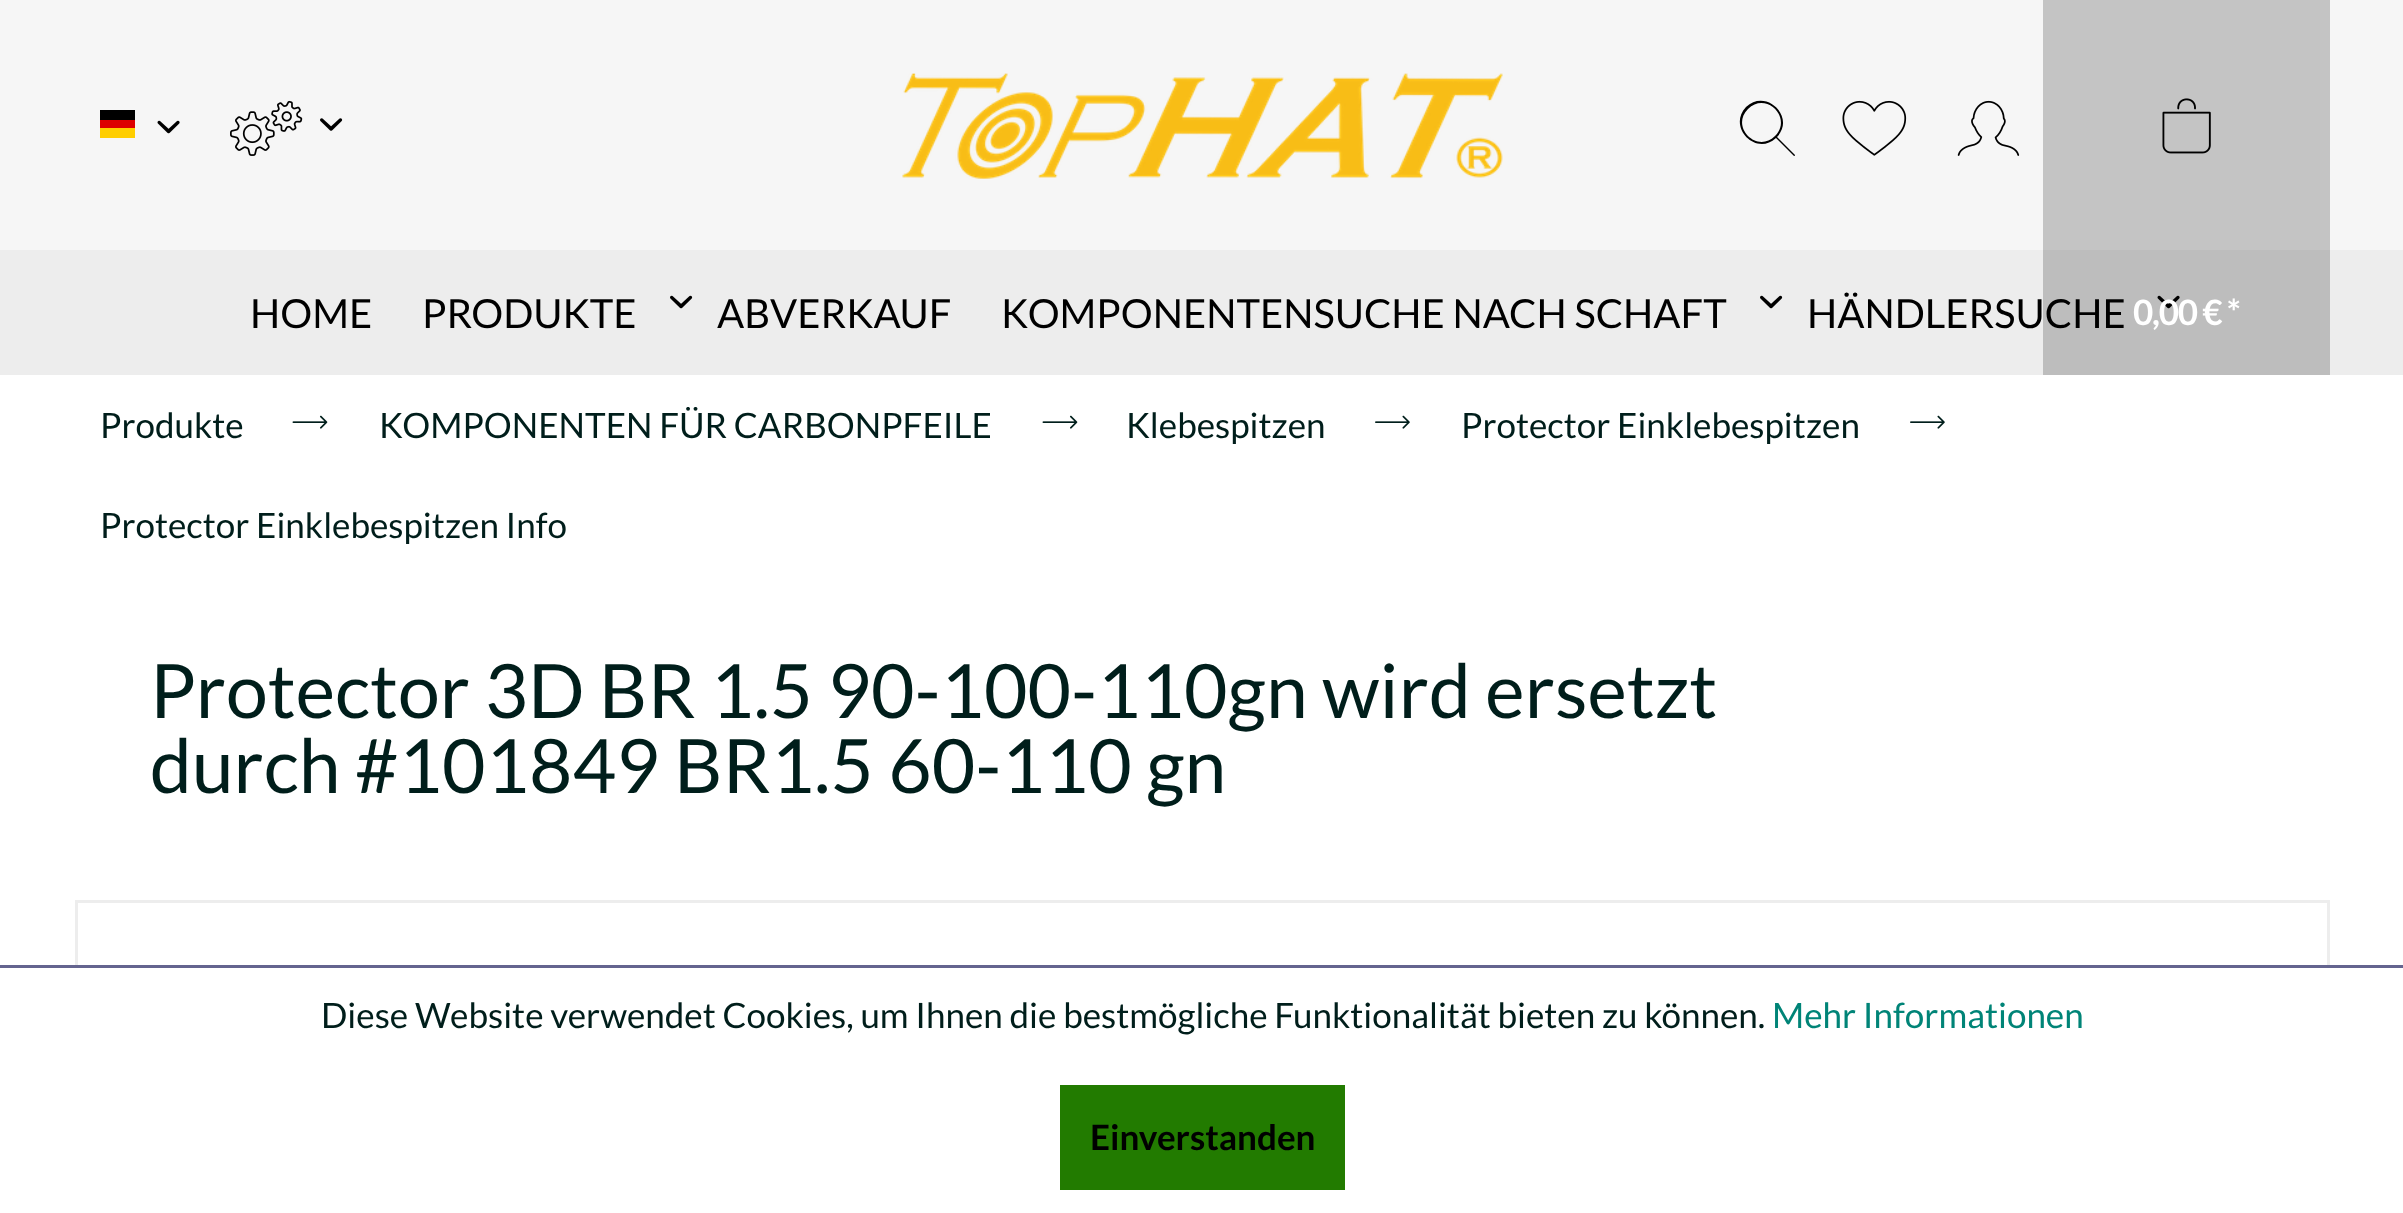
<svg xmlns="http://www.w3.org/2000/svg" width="2403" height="1213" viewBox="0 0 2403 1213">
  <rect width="100%" height="100%" fill="#fff"/>
  <path d="M0 250h2403v125H0z" fill="#ededed"/>
  <image x="670" y="295" width="23" height="14" href="img/1.png"/>
  <image x="1760" y="295" width="23" height="14" href="img/1.png"/>
  <image x="2157" y="295" width="23" height="14" href="img/2.png"/>
  <path d="M0 0h2403v250H0z" fill="#f6f6f6"/>
  <image x="902" y="73" width="601" height="106" href="img/3.png"/>
  <path d="M100 110h35v10H100z" fill="#000"/>
  <path d="M100 120h35v8H100z" fill="#d00"/>
  <path d="M100 128h35v10H100z" fill="#ffce00"/>
  <image x="157" y="120" width="23" height="14" href="img/4.png"/>
  <image x="230" y="100" width="73" height="56" href="img/5.png"/>
  <image x="320" y="118" width="23" height="13" href="img/6.png"/>
  <path d="M1777 137C1796 117 1766 88 1746 107C1727 127 1756 157 1776 138L1794 156C1794 156 1795 156 1795 155ZM1775 136C1757 154 1730 127 1748 109C1766 91 1793 118 1775 136Z" fill="#000"/>
  <image x="1842" y="100" width="65" height="56" href="img/7.png"/>
  <image x="1957" y="100" width="63" height="56" href="img/8.png"/>
  <image x="292" y="415" width="36" height="14" href="img/10.png"/>
  <image x="1042" y="415" width="36" height="14" href="img/10.png"/>
  <image x="1375" y="415" width="35" height="14" href="img/11.png"/>
  <image x="1910" y="415" width="35" height="14" href="img/11.png"/>
  <path d="M76.5 901.5h2252v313H76.5z" fill="none" stroke="#ededed" stroke-width="3"/>
  <path d="M75 968h2255v245H75z" fill="#fff"/>
  <path d="M0 965h2403v3H0z" fill="#64648f"/>
  <path d="M1060 1085h285v105H1060z" fill="#227b00"/>
  <g font-family="Lato" font-size="40" fill="#000">
    <text x="250" y="328">HOME</text>
    <text x="422" y="328">PRODUKTE</text>
    <text x="717" y="328">ABVERKAUF</text>
    <text x="1001" y="328">KOMPONENTENSUCHE NACH SCHAFT</text>
    <text x="1807" y="328">HÄNDLERSUCHE</text>
  </g>
  <path d="M2043 0h287v375H2043z" fill="#00000033"/>
  <image x="2162" y="98" width="49" height="56" href="img/9.png"/>
  <text x="2133" y="325" font-family="Lato" font-size="35" font-weight="bold" letter-spacing="-1.25" fill="#fff">0,00 € *</text>
  <g font-family="Lato" font-size="35" fill="#001e1b">
    <text x="100" y="438">Produkte</text>
    <text x="379" y="438">KOMPONENTEN FÜR CARBONPFEILE</text>
    <text x="1126" y="438">Klebespitzen</text>
    <text x="1461" y="438">Protector Einklebespitzen</text>
    <text x="100" y="538">Protector Einklebespitzen Info</text>
  </g>
  <g font-family="Lato" font-size="75" fill="#001e1b">
    <text x="150" y="718">Protector 3D BR 1.5 90-100-110gn wird ersetzt</text>
    <text x="150" y="793">durch #101849 BR1.5 60-110 gn</text>
  </g>
  <text x="321" y="1028" font-family="Lato" font-size="35" fill="#001e1b">Diese Website verwendet Cookies, um Ihnen die bestmögliche Funktionalität bieten zu können.</text>
  <text x="1772" y="1028" font-family="Lato" font-size="35" fill="#008477">Mehr Informationen</text>
  <text x="1090" y="1150" font-family="Lato" font-size="35" font-weight="bold" fill="#000">Einverstanden</text>
</svg>
